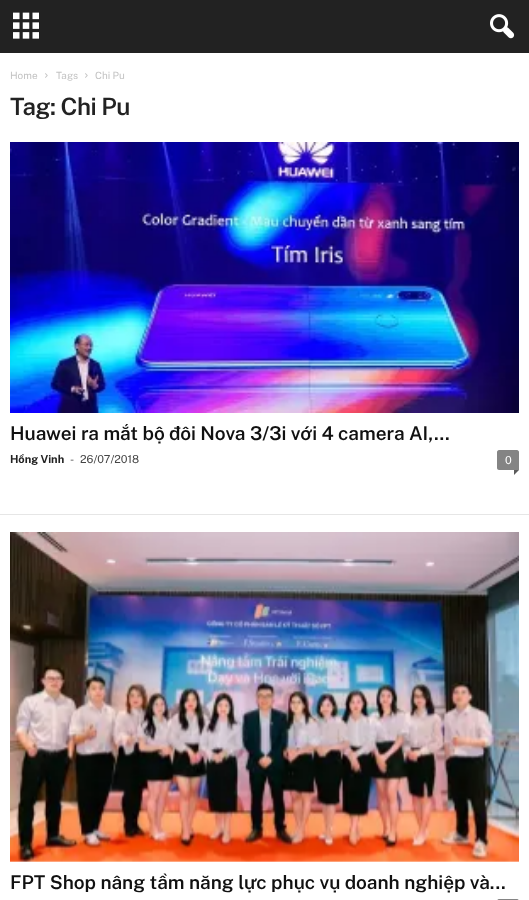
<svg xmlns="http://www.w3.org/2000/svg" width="529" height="900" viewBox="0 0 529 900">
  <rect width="100%" height="100%" fill="#fff"/>
  <path d="M0 0h529v53H0z" fill="#222"/>
  <image x="13" y="12" width="26" height="27" href="img/1.png"/>
  <image x="490" y="14" width="25" height="25" href="img/2.png"/>
  <image x="45" y="73" width="3" height="5" href="img/3.png"/>
  <image x="85" y="73" width="3" height="5" href="img/3.png"/>
  <image x="10" y="142" width="509" height="271" href="img/4.png"/>
  <path d="M499 450H517C518 450 519 451 519 452V470H499C498 470 497 469 497 468V452C497 451 498 450 499 450Z" fill="#848484"/>
  <path d="M514 470H519L514 475Z" fill="#5b5b5b"/>
  <path d="M0 514h529v1H0z" fill="#e6e6e6"/>
  <image x="10" y="532" width="509" height="330" href="img/5.png"/>
  <path d="M499 899H517C518 899 519 900 519 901V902H499C498 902 497 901 497 900V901C497 900 498 899 499 899Z" fill="#848484"/>
  <g font-family="Public Sans" font-size="10" fill="#c3c3c3">
    <text x="10" y="79">Home</text>
    <text x="56" y="79">Tags</text>
    <text x="95" y="79">Chi Pu</text>
  </g>
  <text x="10" y="115" font-family="Public Sans" font-size="24" font-weight="600" letter-spacing="-0.5" fill="#222">Tag: Chi Pu</text>
  <text x="10" y="440" font-family="Public Sans" font-size="19" font-weight="600" fill="#111">Huawei ra mắt bộ đôi Nova 3/3i với 4 camera AI,...</text>
  <text x="10" y="463" font-family="Public Sans" font-size="11" font-weight="bold" fill="#222">Hồng Vinh</text>
  <g font-family="Public Sans" font-size="11" fill="#444">
    <text x="70" y="463">-</text>
    <text x="80" y="463">26/07/2018</text>
  </g>
  <text x="505" y="464" font-family="Public Sans" font-size="11" fill="#fff">0</text>
  <text x="10" y="889" font-family="Public Sans" font-size="19" font-weight="600" fill="#111">FPT Shop nâng tầm năng lực phục vụ doanh nghiệp và...</text>
</svg>
